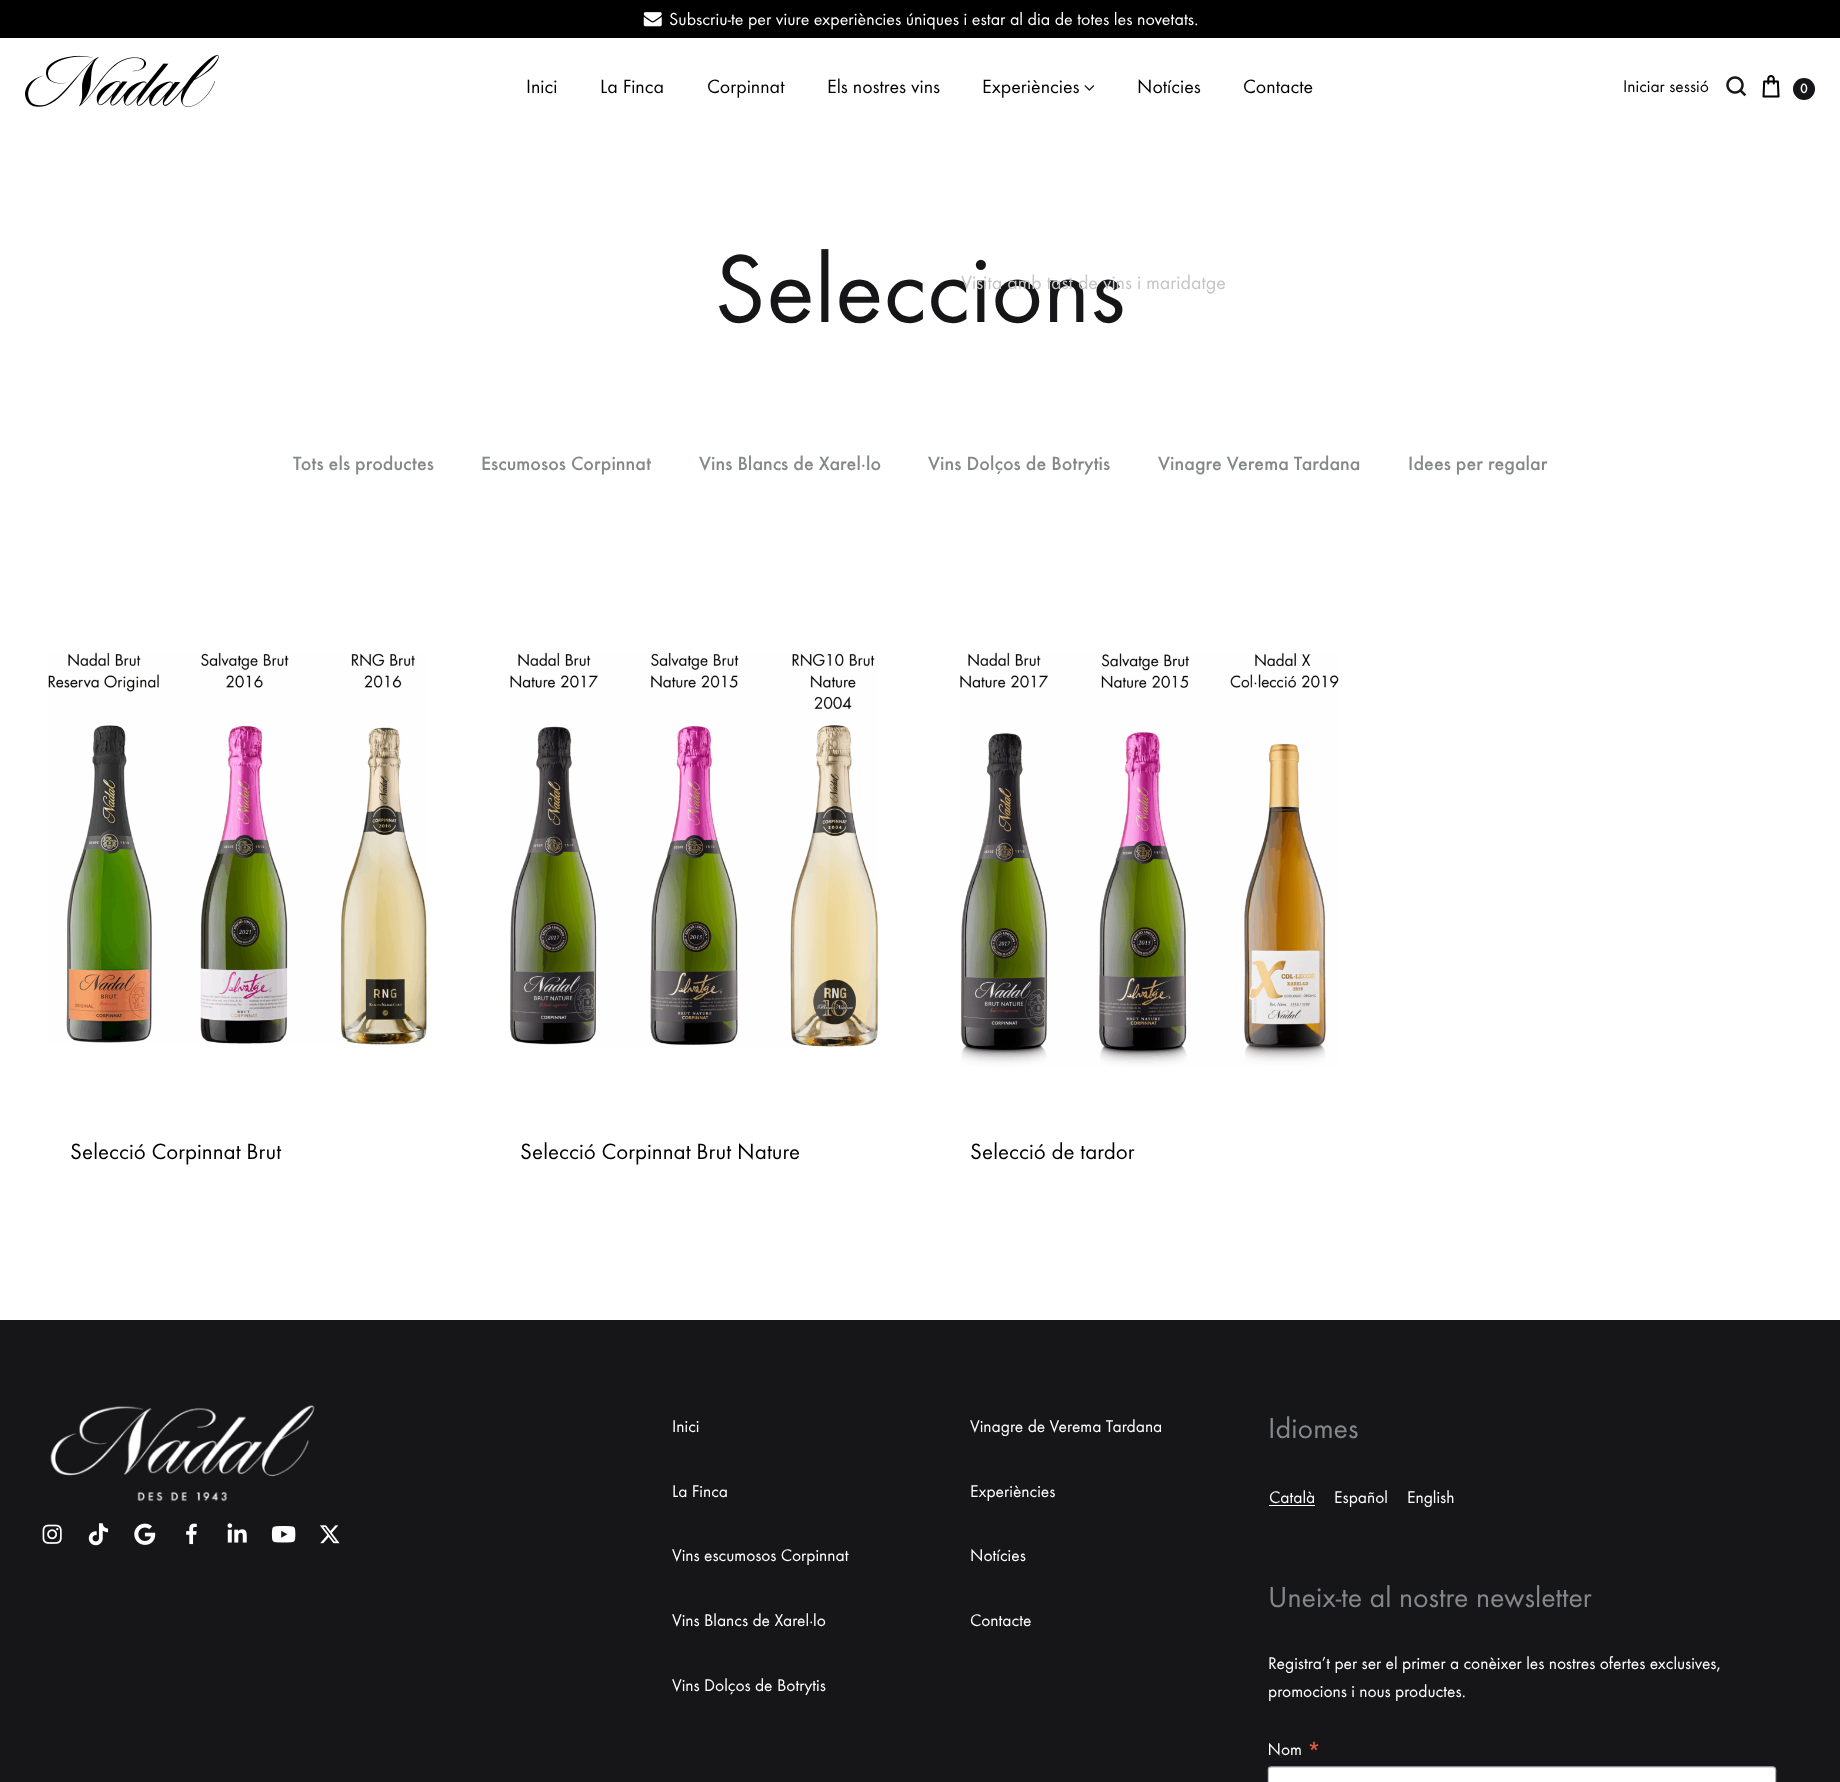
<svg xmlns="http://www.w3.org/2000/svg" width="1840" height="1782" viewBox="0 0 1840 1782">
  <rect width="100%" height="100%" fill="#fff"/>
  <path d="M0 0h1840v38H0z" fill="#000"/>
  <image x="643" y="12" width="19" height="15" href="img/1.png"/>
  <image x="25" y="55" width="194" height="53" href="img/2.png"/>
  <image x="1084" y="85" width="11" height="6" href="img/3.png"/>
  <image x="1726" y="76" width="21" height="21" href="img/4.png"/>
  <image x="1762" y="75" width="18" height="23" href="img/5.png"/>
  <circle cx="1804" cy="89" r="11" fill="#161619"/>
  <image x="48" y="652" width="379" height="393" href="img/6.png"/>
  <image x="510" y="652" width="368" height="395" href="img/7.png"/>
  <image x="960" y="652" width="379" height="415" href="img/8.png"/>
  <path d="M0 1320h1840v462H0z" fill="#161619"/>
  <image x="50" y="1405" width="265" height="97" href="img/9.png"/>
  <image x="42" y="1524" width="20" height="20" href="img/10.png"/>
  <image x="88" y="1523" width="21" height="23" href="img/11.png"/>
  <image x="134" y="1523" width="22" height="22" href="img/12.png"/>
  <image x="186" y="1523" width="11" height="22" href="img/13.png"/>
  <image x="227" y="1523" width="20" height="20" href="img/14.png"/>
  <image x="271" y="1526" width="25" height="17" href="img/15.png"/>
  <image x="319" y="1525" width="21" height="19" href="img/16.png"/>
  <path d="M1269 1505h46v1H1269z" fill="#fff"/>
  <image x="1267" y="1741" width="510" height="41" href="img/17.png"/>
  <text x="669" y="25" font-family="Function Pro" font-size="18" fill="#fff">Subscriu-te per viure experiències úniques i estar al dia de totes les novetats.</text>
  <g font-family="Function Pro" font-size="20" fill="#000">
    <text x="526" y="93">Inici</text>
    <text x="600" y="93">La Finca</text>
    <text x="707" y="93">Corpinnat</text>
    <text x="827" y="93">Els nostres vins</text>
    <text x="982" y="93">Experiències</text>
    <text x="1137" y="93">Notícies</text>
    <text x="1243" y="93">Contacte</text>
  </g>
  <text x="1623" y="92" font-family="Function Pro" font-size="17.5" fill="#000">Iniciar sessió</text>
  <text x="1800" y="93" font-family="Function Pro" font-size="14" font-weight="500" fill="#fff">0</text>
  <text x="714" y="322" font-family="Function Pro" font-size="100" fill="#161619">Seleccions</text>
  <text x="961" y="289" font-family="Function Pro" font-size="20" fill="#c5c5c6">Visita amb tast de vins i maridatge</text>
  <g font-family="Function Pro" font-size="20" font-weight="500" fill="#838889">
    <text x="293" y="470">Tots els productes</text>
    <text x="481" y="470">Escumosos Corpinnat</text>
    <text x="699" y="470">Vins Blancs de Xarel·lo</text>
    <text x="928" y="470">Vins Dolços de Botrytis</text>
    <text x="1158" y="470">Vinagre Verema Tardana</text>
    <text x="1408" y="470">Idees per regalar</text>
  </g>
  <g font-family="Function Pro" font-size="23" fill="#000">
    <text x="70" y="1159">Selecció Corpinnat Brut</text>
    <text x="520" y="1159">Selecció Corpinnat Brut Nature</text>
    <text x="970" y="1159">Selecció de tardor</text>
  </g>
  <g font-family="Function Pro" font-size="17.5" fill="#fff">
    <text x="672" y="1432">Inici</text>
    <text x="672" y="1497">La Finca</text>
    <text x="672" y="1561">Vins escumosos Corpinnat</text>
    <text x="672" y="1626">Vins Blancs de Xarel·lo</text>
    <text x="672" y="1691">Vins Dolços de Botrytis</text>
    <text x="970" y="1432">Vinagre de Verema Tardana</text>
    <text x="970" y="1497">Experiències</text>
    <text x="970" y="1561">Notícies</text>
    <text x="970" y="1626">Contacte</text>
  </g>
  <text x="1268" y="1438" font-family="Function Pro" font-size="30" fill="#838889">Idiomes</text>
  <g font-family="Function Pro" font-size="17.5" fill="#fff">
    <text x="1269" y="1503">Català</text>
    <text x="1334" y="1503">Español</text>
    <text x="1407" y="1503">English</text>
  </g>
  <text x="1268" y="1607" font-family="Function Pro" font-size="30" fill="#838889">Uneix-te al nostre newsletter</text>
  <g font-family="Function Pro" font-size="17.5" fill="#fff">
    <text x="1268" y="1669">Registra’t per ser el primer a conèixer les nostres ofertes exclusives,</text>
    <text x="1268" y="1697">promocions i nous productes.</text>
  </g>
</svg>
